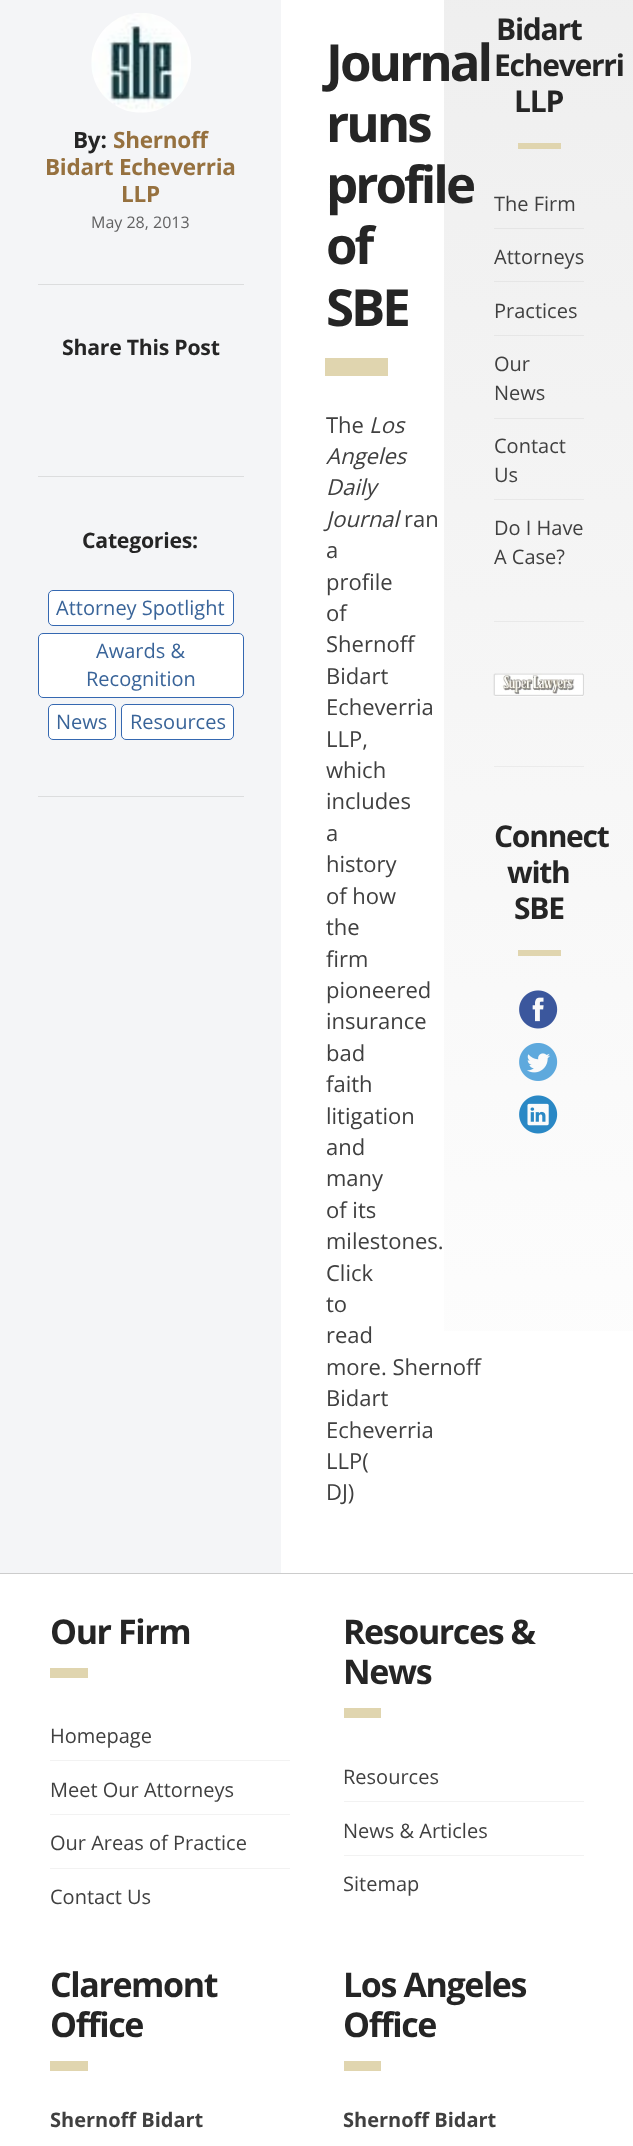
<svg xmlns="http://www.w3.org/2000/svg" width="633" height="2146" viewBox="0 0 633 2146">
  <defs>
    <linearGradient id="g1" gradientUnits="userSpaceOnUse" x1="317" y1="-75" x2="317" y2="1573"><stop offset="0" stop-color="#eee"/><stop offset="1" stop-color="#fff"/></linearGradient>
  </defs>
  <rect width="100%" height="100%" fill="#fff"/>
  <path d="M444 0h189v1331H444z" fill="url(#g1)"/>
  <path d="M0 0h281v1573H0z" fill="#f4f5f7"/>
  <path d="M38 284h206v1H38z" fill="#dcddde"/>
  <image x="91" y="13" width="100" height="100" href="img/1.png"/>
  <path d="M38 476h206v1H38z" fill="#dcddde"/>
  <path d="M38 796h206v1H38z" fill="#dcddde"/>
  <rect x="48.5" y="590.5" width="185" height="35" rx="4.5" fill="#fff" stroke="#3568b1"/>
  <rect x="38.5" y="633.5" width="205" height="64" rx="4.5" fill="#fff" stroke="#3568b1"/>
  <rect x="48.5" y="704.5" width="67" height="35" rx="4.5" fill="#fff" stroke="#3568b1"/>
  <rect x="121.5" y="704.5" width="112" height="35" rx="4.5" fill="#fff" stroke="#3568b1"/>
  <path d="M325 358h63v18H325z" fill="#e0d5af"/>
  <path d="M494 621h90v1H494z" fill="#e9e9e9"/>
  <path d="M518 143h43v6H518z" fill="#e0d5af"/>
  <path d="M494 228h90v1H494z" fill="#e5e5e5"/>
  <path d="M494 281h90v1H494z" fill="#e6e6e6"/>
  <path d="M494 335h90v1H494z" fill="#e6e6e6"/>
  <path d="M494 418h90v1H494z" fill="#e7e7e7"/>
  <path d="M494 499h90v1H494z" fill="#e8e8e8"/>
  <path d="M494 766h90v1H494z" fill="#ebebeb"/>
  <image x="493" y="673" width="91" height="24" href="img/2.png"/>
  <path d="M518 950h43v6H518z" fill="#e0d5af"/>
  <image x="519" y="990" width="39" height="39" href="img/3.png"/>
  <image x="519" y="1043" width="39" height="38" href="img/4.png"/>
  <image x="519" y="1095" width="39" height="39" href="img/5.png"/>
  <path d="M0 1573h633v1H0z" fill="#ccc"/>
  <path d="M50 1668h38v10H50z" fill="#e0d5af"/>
  <path d="M50 1760h240v1H50z" fill="#f2f2f2"/>
  <path d="M50 1814h240v1H50z" fill="#f2f2f2"/>
  <path d="M50 1868h240v1H50z" fill="#f2f2f2"/>
  <path d="M344 1708h37v10H344z" fill="#e0d5af"/>
  <path d="M344 1801h240v1H344z" fill="#f2f2f2"/>
  <path d="M344 1855h240v1H344z" fill="#f2f2f2"/>
  <path d="M50 2061h38v10H50z" fill="#e0d5af"/>
  <path d="M344 2061h37v10H344z" fill="#e0d5af"/>
  <text x="73" y="148" font-family="Open Sans" font-size="22.5" font-weight="bold" letter-spacing="-0.25" fill="#252525">By:</text>
  <g font-family="Open Sans" font-size="22.5" font-weight="bold" letter-spacing="-0.25" fill="#96713f">
    <text x="113" y="148">Shernoff</text>
    <text x="45" y="175">Bidart Echeverria</text>
    <text x="121" y="202">LLP</text>
  </g>
  <text x="91" y="228" font-family="Open Sans" font-size="16" fill="#626263">May 28, 2013</text>
  <g font-family="Open Sans" font-size="21.25" font-weight="bold" letter-spacing="-0.25" fill="#252525">
    <text x="62" y="355">Share This Post</text>
    <text x="82" y="548">Categories:</text>
  </g>
  <g font-family="Open Sans" font-size="20" fill="#396499">
    <text x="56" y="615">Attorney Spotlight</text>
    <text x="96" y="658">Awards &amp;</text>
    <text x="86" y="686">Recognition</text>
    <text x="56" y="729">News</text>
    <text x="130" y="729">Resources</text>
  </g>
  <g font-family="Open Sans" font-size="51" font-weight="bold" letter-spacing="-3" fill="#252525">
    <text x="326" y="81">Journal</text>
    <text x="326" y="142">runs</text>
    <text x="326" y="203">profile</text>
    <text x="326" y="264">of</text>
    <text x="326" y="326">SBE</text>
  </g>
  <text x="326" y="433" font-family="Open Sans" font-size="22" fill="#404040">The</text>
  <g font-family="Open Sans" font-size="22" font-style="italic" fill="#404040">
    <text x="369" y="433">Los</text>
    <text x="326" y="464">Angeles</text>
    <text x="326" y="495">Daily</text>
    <text x="326" y="527">Journal</text>
  </g>
  <g font-family="Open Sans" font-size="22" fill="#404040">
    <text x="404" y="527">ran</text>
    <text x="326" y="558">a</text>
    <text x="326" y="590">profile</text>
    <text x="326" y="621">of</text>
    <text x="326" y="652">Shernoff</text>
    <text x="326" y="684">Bidart</text>
    <text x="326" y="715">Echeverria</text>
    <text x="326" y="747">LLP,</text>
    <text x="326" y="778">which</text>
    <text x="326" y="809">includes</text>
    <text x="326" y="841">a</text>
    <text x="326" y="872">history</text>
    <text x="326" y="904">of how</text>
    <text x="326" y="935">the</text>
    <text x="326" y="967">firm</text>
    <text x="326" y="998">pioneered</text>
    <text x="326" y="1029">insurance</text>
    <text x="326" y="1061">bad</text>
    <text x="326" y="1092">faith</text>
    <text x="326" y="1124">litigation</text>
    <text x="326" y="1155">and</text>
    <text x="326" y="1186">many</text>
    <text x="326" y="1218">of its</text>
    <text x="326" y="1249">milestones.</text>
    <text x="326" y="1281">Click</text>
    <text x="326" y="1312">to</text>
    <text x="326" y="1343">read</text>
    <text x="326" y="1375">more. Shernoff</text>
    <text x="326" y="1406">Bidart</text>
    <text x="326" y="1438">Echeverria</text>
    <text x="326" y="1469">LLP(</text>
    <text x="326" y="1500">DJ)</text>
  </g>
  <g font-family="Open Sans" font-size="30" font-weight="bold" letter-spacing="-1.25" fill="#252525">
    <text x="496" y="40">Bidart</text>
    <text x="494" y="76">Echeverri</text>
    <text x="514" y="112">LLP</text>
  </g>
  <g font-family="Open Sans" font-size="20" fill="#404040">
    <text x="494" y="211">The Firm</text>
    <text x="494" y="264">Attorneys</text>
    <text x="494" y="318">Practices</text>
    <text x="494" y="371">Our</text>
    <text x="494" y="400">News</text>
    <text x="494" y="453">Contact</text>
    <text x="494" y="482">Us</text>
    <text x="494" y="535">Do I Have</text>
    <text x="494" y="564">A Case?</text>
  </g>
  <g font-family="Open Sans" font-size="30" font-weight="bold" letter-spacing="-1.25" fill="#252525">
    <text x="494" y="847">Connect</text>
    <text x="507" y="883">with</text>
    <text x="514" y="919">SBE</text>
  </g>
  <text x="50" y="1644" font-family="Open Sans" font-size="34" font-weight="bold" letter-spacing="-1.4" fill="#252525">Our Firm</text>
  <g font-family="Open Sans" font-size="20" fill="#404040">
    <text x="50" y="1743">Homepage</text>
    <text x="50" y="1797">Meet Our Attorneys</text>
    <text x="50" y="1850">Our Areas of Practice</text>
    <text x="50" y="1904">Contact Us</text>
  </g>
  <g font-family="Open Sans" font-size="34" font-weight="bold" letter-spacing="-1.4" fill="#252525">
    <text x="343" y="1644">Resources &amp;</text>
    <text x="343" y="1684">News</text>
  </g>
  <g font-family="Open Sans" font-size="20" fill="#404040">
    <text x="343" y="1784">Resources</text>
    <text x="343" y="1838">News &amp; Articles</text>
    <text x="343" y="1891">Sitemap</text>
  </g>
  <g font-family="Open Sans" font-size="34" font-weight="bold" letter-spacing="-1.4" fill="#252525">
    <text x="50" y="1997">Claremont</text>
    <text x="50" y="2037">Office</text>
  </g>
  <text x="50" y="2127" font-family="Open Sans" font-size="20" font-weight="bold" fill="#404040">Shernoff Bidart</text>
  <g font-family="Open Sans" font-size="34" font-weight="bold" letter-spacing="-1.4" fill="#252525">
    <text x="343" y="1997">Los Angeles</text>
    <text x="343" y="2037">Office</text>
  </g>
  <text x="343" y="2127" font-family="Open Sans" font-size="20" font-weight="bold" fill="#404040">Shernoff Bidart</text>
</svg>
